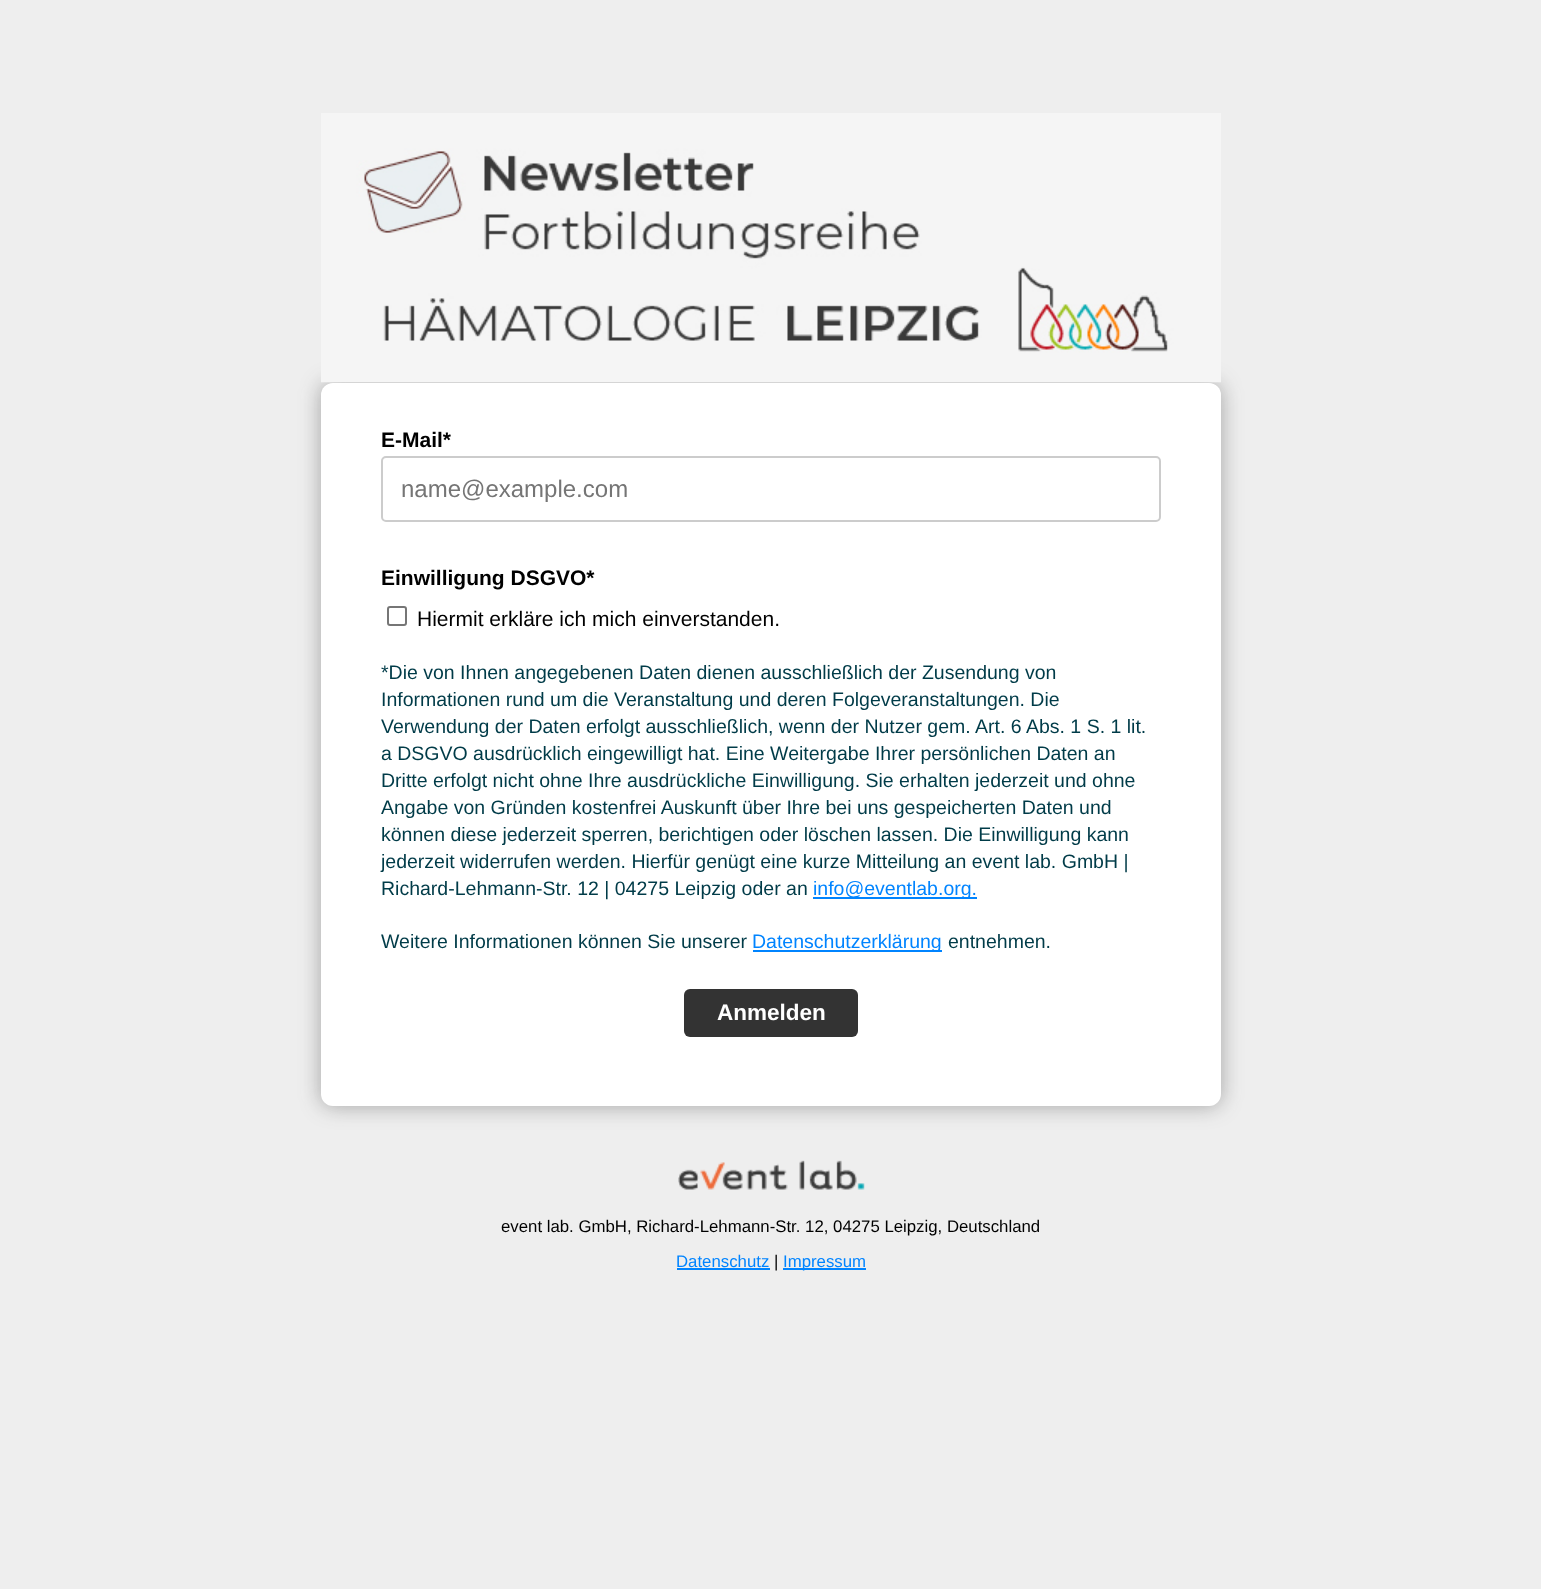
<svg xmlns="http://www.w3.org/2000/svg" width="1541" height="1589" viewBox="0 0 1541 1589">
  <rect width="100%" height="100%" fill="#eee"/>
  <rect x="321" y="383" width="900" height="723" rx="12" fill="#33333366" filter="blur(10.5px)"/>
  <image x="321" y="113" width="900" height="270" href="img/1.png"/>
  <rect x="321" y="383" width="900" height="723" rx="12" fill="#fff"/>
  <rect x="382" y="457" width="778" height="64" rx="4" fill="none" stroke="#ccc" stroke-width="2"/>
  <rect x="388" y="607" width="18" height="18" rx="2" fill="none" stroke="#767676" stroke-width="2"/>
  <path d="M813 897h164v2H813z" fill="#0084ff"/>
  <path d="M753 950h189v2H753z" fill="#0084ff"/>
  <rect x="684" y="989" width="174" height="48" rx="6" fill="#333"/>
  <image x="678" y="1160" width="187" height="30" href="img/2.png"/>
  <path d="M677 1268h93v2H677z" fill="#0084ff"/>
  <path d="M783 1268h83v2H783z" fill="#0084ff"/>
  <text x="381" y="447" font-family="Liberation Sans" font-size="21" font-weight="bold" fill="#000">E-Mail*</text>
  <text x="401" y="497" font-family="Liberation Sans" font-size="24" fill="#757575">name@example.com</text>
  <text x="381" y="585" font-family="Liberation Sans" font-size="21" font-weight="bold" fill="#000">Einwilligung DSGVO*</text>
  <text x="417" y="626" font-family="Liberation Sans" font-size="21" fill="#000">Hiermit erkläre ich mich einverstanden.</text>
  <g font-family="Liberation Sans" font-size="19.5" fill="#003b48">
    <text x="381" y="679">*Die von Ihnen angegebenen Daten dienen ausschließlich der Zusendung von</text>
    <text x="381" y="706">Informationen rund um die Veranstaltung und deren Folgeveranstaltungen. Die</text>
    <text x="381" y="733">Verwendung der Daten erfolgt ausschließlich, wenn der Nutzer gem. Art. 6 Abs. 1 S. 1 lit.</text>
    <text x="381" y="760">a DSGVO ausdrücklich eingewilligt hat. Eine Weitergabe Ihrer persönlichen Daten an</text>
    <text x="381" y="787">Dritte erfolgt nicht ohne Ihre ausdrückliche Einwilligung. Sie erhalten jederzeit und ohne</text>
    <text x="381" y="814">Angabe von Gründen kostenfrei Auskunft über Ihre bei uns gespeicherten Daten und</text>
    <text x="381" y="841">können diese jederzeit sperren, berichtigen oder löschen lassen. Die Einwilligung kann</text>
    <text x="381" y="868">jederzeit widerrufen werden. Hierfür genügt eine kurze Mitteilung an event lab. GmbH |</text>
    <text x="381" y="895">Richard-Lehmann-Str. 12 | 04275 Leipzig oder an</text>
  </g>
  <text x="813" y="895" font-family="Liberation Sans" font-size="19.5" fill="#0084ff">info@eventlab.org.</text>
  <text x="381" y="948" font-family="Liberation Sans" font-size="19.5" fill="#003b48">Weitere Informationen können Sie unserer</text>
  <text x="752" y="948" font-family="Liberation Sans" font-size="19.5" fill="#0084ff">Datenschutzerklärung</text>
  <text x="948" y="948" font-family="Liberation Sans" font-size="19.5" fill="#003b48">entnehmen.</text>
  <text x="717" y="1020" font-family="Liberation Sans" font-size="22.5" font-weight="bold" fill="#fff">Anmelden</text>
  <text x="501" y="1232" font-family="Liberation Sans" font-size="16.8" fill="#000">event lab. GmbH, Richard-Lehmann-Str. 12, 04275 Leipzig, Deutschland</text>
  <text x="676" y="1267" font-family="Liberation Sans" font-size="16.8" fill="#0084ff">Datenschutz</text>
  <text x="774" y="1267" font-family="Liberation Sans" font-size="16.8" fill="#000">|</text>
  <text x="783" y="1267" font-family="Liberation Sans" font-size="16.8" fill="#0084ff">Impressum</text>
</svg>
